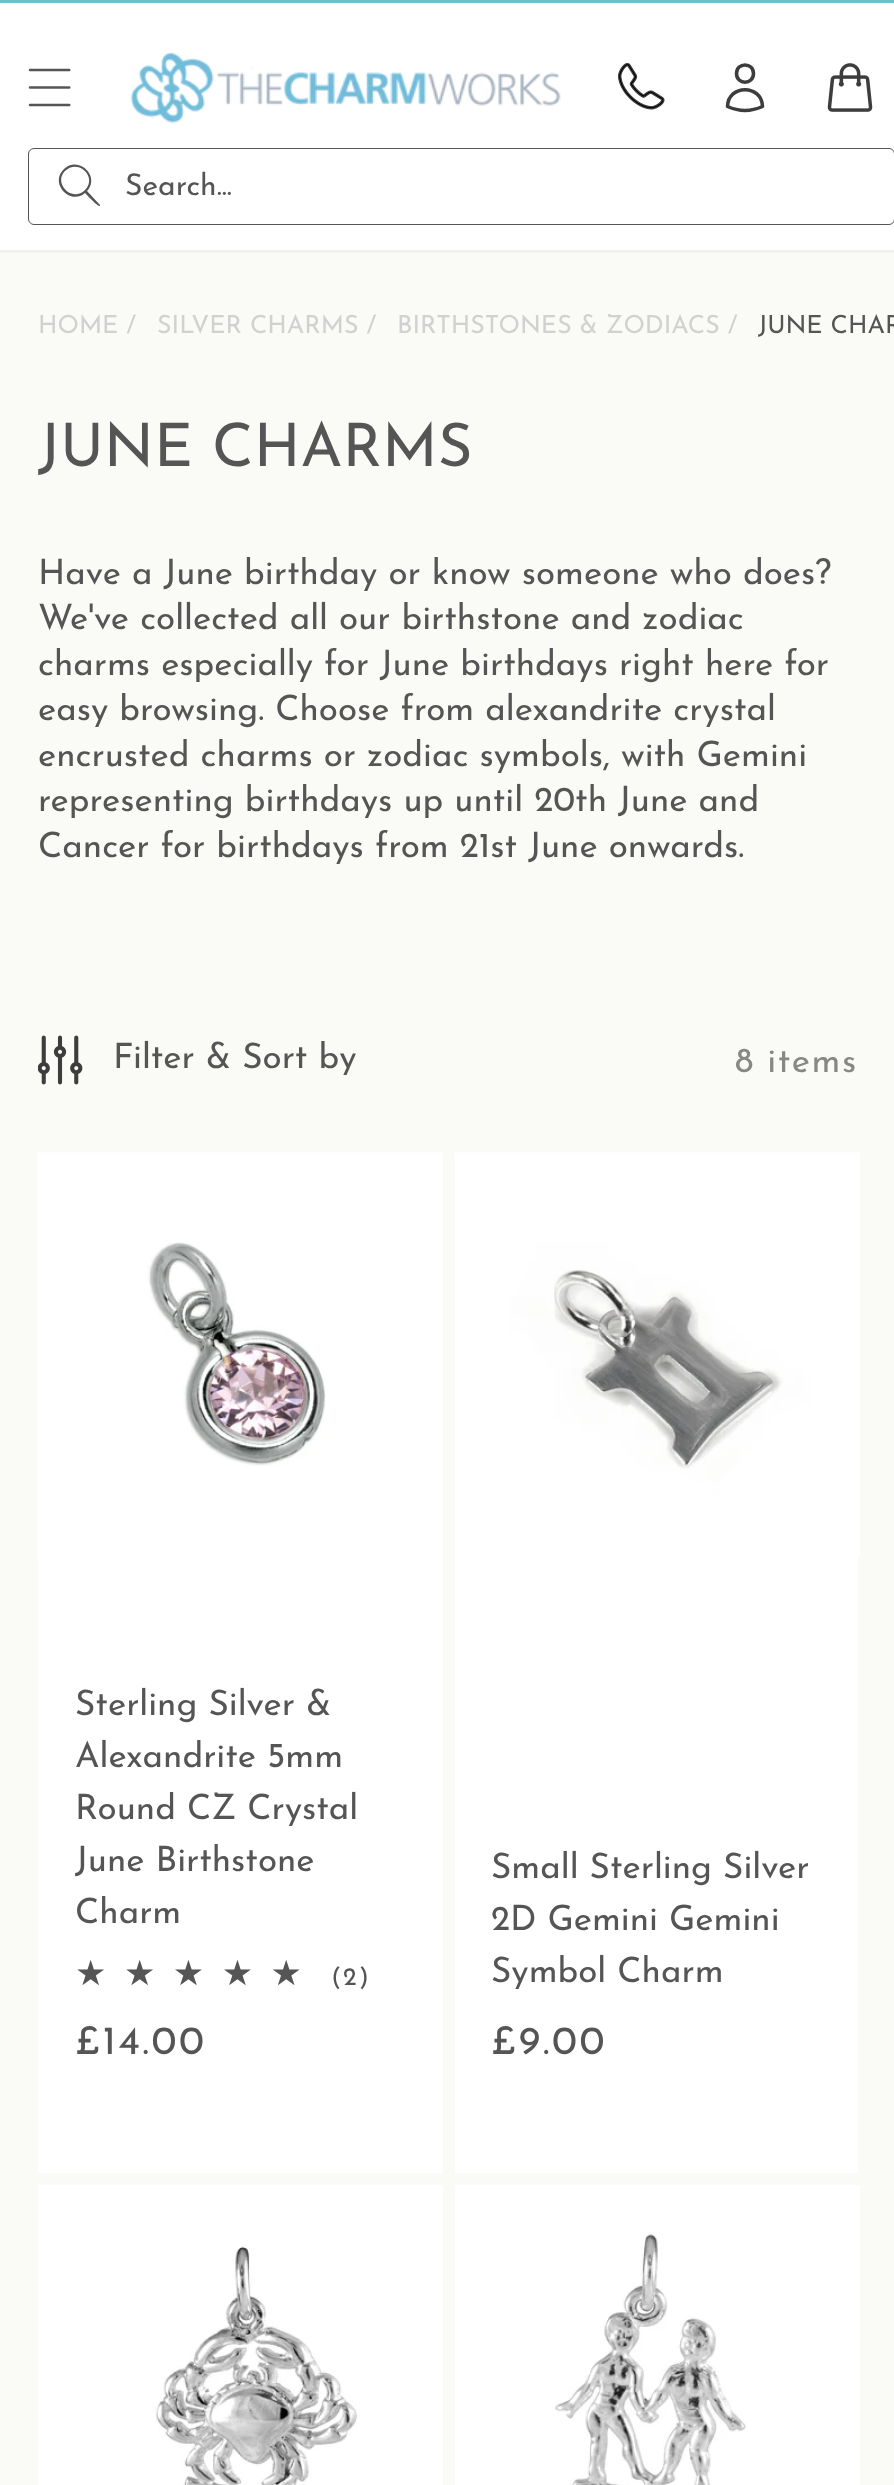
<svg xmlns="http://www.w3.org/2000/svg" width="894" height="2485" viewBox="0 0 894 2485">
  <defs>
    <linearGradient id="g1" gradientUnits="userSpaceOnUse" x1="75" y1="1974" x2="319" y2="1974"><stop offset="1" stop-color="#555"/><stop offset="1" stop-color="#e6e6e6"/></linearGradient>
  </defs>
  <rect width="100%" height="100%" fill="#fafaf6"/>
  <path d="M0 0h894v3H0z" fill="#6fbfce"/>
  <path d="M0 3h894v247H0z" fill="#fff"/>
  <path d="M0 250h894v3H0z" fill="#f1f1f1"/>
  <image x="28" y="68" width="43" height="39" href="img/1.png"/>
  <image x="130" y="52" width="431" height="72" href="img/2.png"/>
  <image x="618" y="63" width="47" height="47" href="img/3.png"/>
  <path d="M753.5 73.5C753.5 85 736.5 85 736.5 73.5C736.5 62 753.5 62 753.5 73.5ZM727.5 106.5C728 84 762 84 762.5 106.5C751.5 111.5 738.5 111.5 727.5 106.5Z" fill="none" stroke="#3d3d3d" stroke-width="3.5" stroke-linecap="round" stroke-linejoin="round"/>
  <image x="827" y="63" width="46" height="49" href="img/4.png"/>
  <path d="M85 190C72 203 53 183 65 171C78 158 98 177 85 190ZM85 193C70 206 49 183 64 169C78 155 101 176 87 191L100 205V206C98 207 87 195 85 193Z" fill="#555" fill-rule="evenodd"/>
  <rect x="28.5" y="148.5" width="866" height="76" rx="5.5" fill="none" stroke="#555"/>
  <image x="38" y="1035" width="45" height="50" href="img/5.png"/>
  <path d="M38 1153h405v1020H38z" fill="#fff"/>
  <image x="37" y="1152" width="405" height="405" href="img/6.png"/>
  <path d="M455 1557h403v616H455z" fill="#fff"/>
  <image x="455" y="1152" width="405" height="406" href="img/7.png"/>
  <path d="M38 2185h405v300H38z" fill="#fff"/>
  <image x="155" y="2246" width="202" height="239" href="img/8.png"/>
  <path d="M455 2185h100v300H455z" fill="#fff"/>
  <image x="555" y="2185" width="305" height="300" href="img/9.png"/>
  <text x="125" y="195" font-family="Josefin Sans" font-size="30" fill="#555">Search...</text>
  <g font-family="Josefin Sans" font-size="25" fill="#d1d1d1">
    <text x="38" y="333">HOME /</text>
    <text x="157" y="333">SILVER CHARMS /</text>
    <text x="397" y="333">BIRTHSTONES &amp; ZODIACS /</text>
  </g>
  <text x="758" y="333" font-family="Josefin Sans" font-size="25" fill="#555">JUNE CHAR</text>
  <text x="38" y="466" font-family="Josefin Sans" font-size="60" fill="#555">JUNE CHARMS</text>
  <g font-family="Josefin Sans" font-size="35" fill="#555">
    <text x="38" y="584">Have a June birthday or know someone who does?</text>
    <text x="38" y="629">We've collected all our birthstone and zodiac</text>
    <text x="38" y="675">charms especially for June birthdays right here for</text>
    <text x="38" y="720">easy browsing. Choose from alexandrite crystal</text>
    <text x="38" y="766">encrusted charms or zodiac symbols, with Gemini</text>
    <text x="38" y="811">representing birthdays up until 20th June and</text>
    <text x="38" y="857">Cancer for birthdays from 21st June onwards.</text>
    <text x="113" y="1068">Filter &amp; Sort by</text>
  </g>
  <text x="735" y="1072" font-family="Josefin Sans" font-size="35" letter-spacing="1.5" fill="#878785">8 items</text>
  <g font-family="Josefin Sans" font-size="35" fill="#555">
    <text x="75" y="1715">Sterling Silver &amp;</text>
    <text x="75" y="1767">Alexandrite 5mm</text>
    <text x="75" y="1819">Round CZ Crystal</text>
    <text x="75" y="1871">June Birthstone</text>
    <text x="75" y="1923">Charm</text>
  </g>
  <text x="75" y="1985" font-family="DejaVu Sans" font-size="35" letter-spacing="17.5" fill="url(#g1)">★★★★★</text>
  <text x="331" y="1985" font-family="Josefin Sans" font-size="25" letter-spacing="2" fill="#555">(2)</text>
  <text x="75" y="2054" font-family="Josefin Sans" font-size="40" letter-spacing="2.5" fill="#555">£14.00</text>
  <g font-family="Josefin Sans" font-size="35" fill="#555">
    <text x="491" y="1878">Small Sterling Silver</text>
    <text x="491" y="1930">2D Gemini Gemini</text>
    <text x="491" y="1982">Symbol Charm</text>
  </g>
  <text x="491" y="2054" font-family="Josefin Sans" font-size="40" letter-spacing="2.5" fill="#555">£9.00</text>
</svg>
